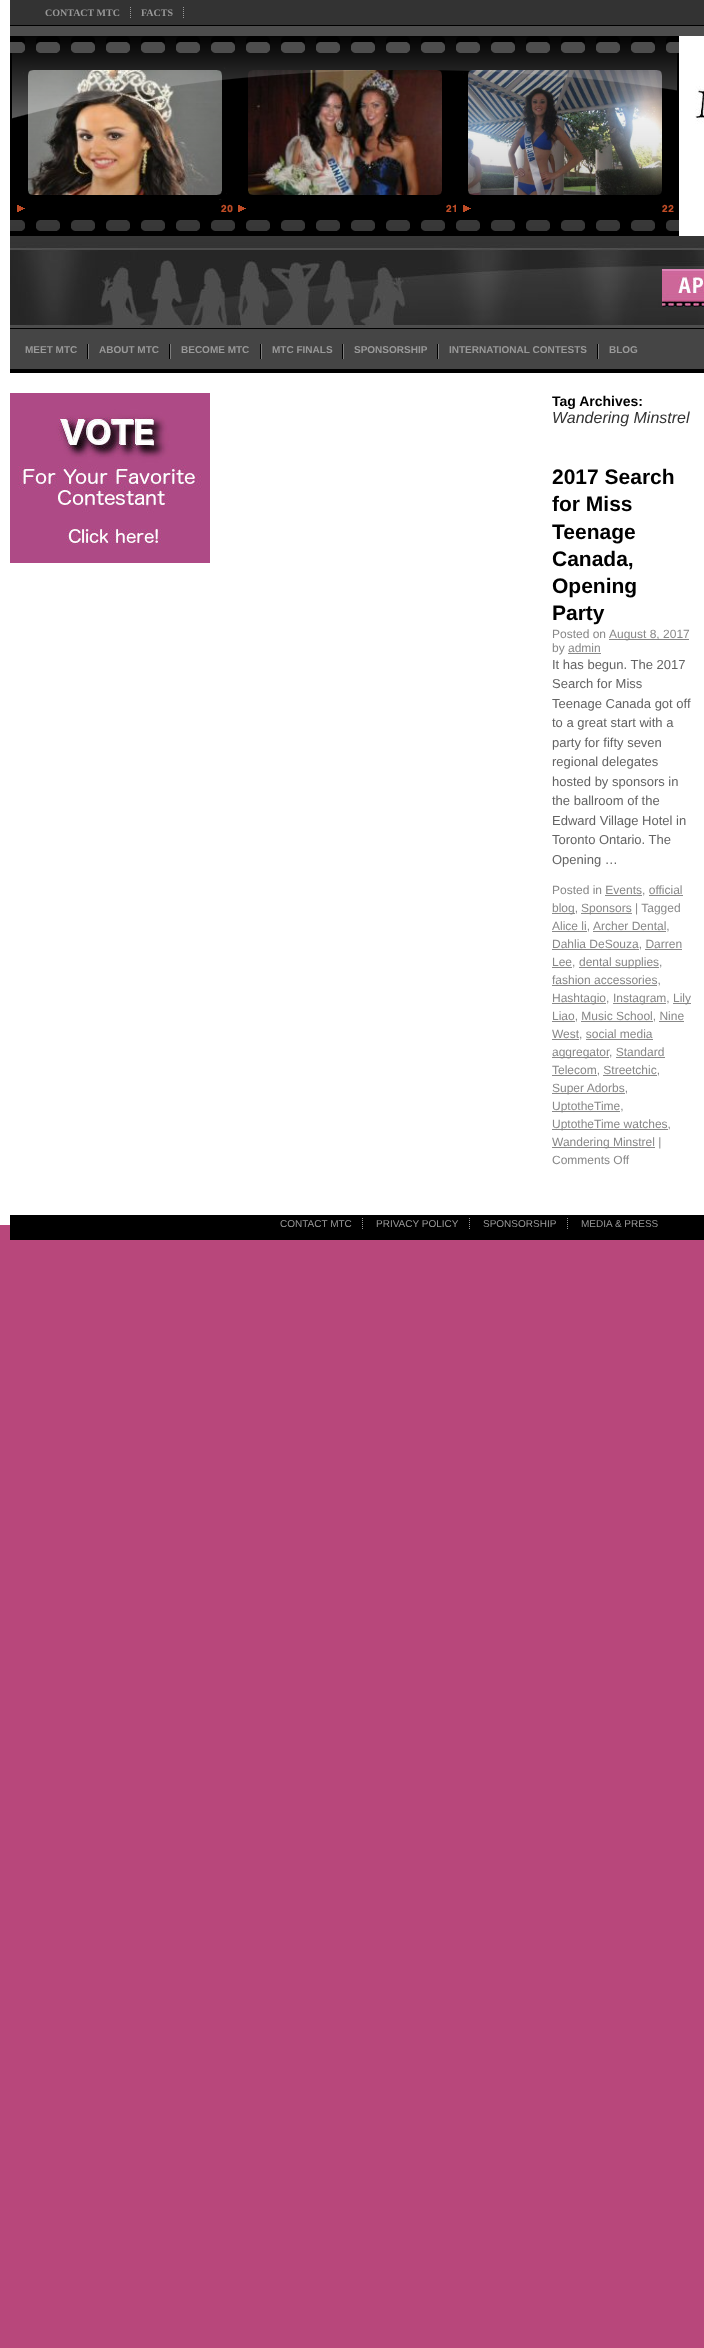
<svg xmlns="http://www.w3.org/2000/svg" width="704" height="2348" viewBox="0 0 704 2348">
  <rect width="100%" height="100%" fill="#b8477b"/>
  <path d="M0 0h704v1225H0z" fill="#fff"/>
  <path d="M10 0h694v25H10z" fill="#333"/>
  <path d="M10 25h694v1H10z" fill="#000"/>
  <path d="M130.5 7V18" fill="none" stroke="#999" stroke-dasharray="1 1"/>
  <path d="M183.5 7V18" fill="none" stroke="#999" stroke-dasharray="1 1"/>
  <path d="M10 26h669v205H10z" fill="#4d4d4d"/>
  <image x="23" y="70" width="199" height="130" href="img/5.png"/>
  <image x="243" y="70" width="199" height="130" href="img/6.png"/>
  <image x="463" y="70" width="199" height="130" href="img/7.png"/>
  <image x="10" y="36" width="669" height="200" href="img/1.png"/>
  <image x="695" y="86" width="9" height="38" href="img/2.png"/>
  <path d="M679 26h25v10H679z" fill="#4d4d4d"/>
  <image x="10" y="236" width="694" height="92" href="img/3.png"/>
  <image x="662" y="269" width="42" height="38" href="img/4.png"/>
  <path d="M10 329h694v40H10z" fill="#454545"/>
  <path d="M10 328h694v1H10z" fill="#000"/>
  <path d="M10 369h694v4H10z" fill="#000"/>
  <path d="M87 344h1v15H87z" fill="#000"/>
  <path d="M169 344h1v15H169z" fill="#000"/>
  <path d="M88 344h1v15H88z" fill="#7d7d7d"/>
  <path d="M260 344h1v15H260z" fill="#000"/>
  <path d="M170 344h1v15H170z" fill="#7d7d7d"/>
  <path d="M342 344h1v15H342z" fill="#000"/>
  <path d="M261 344h1v15H261z" fill="#7d7d7d"/>
  <path d="M437 344h1v15H437z" fill="#000"/>
  <path d="M343 344h1v15H343z" fill="#7d7d7d"/>
  <path d="M597 344h1v15H597z" fill="#000"/>
  <path d="M438 344h1v15H438z" fill="#7d7d7d"/>
  <path d="M598 344h1v15H598z" fill="#7d7d7d"/>
  <image x="10" y="393" width="200" height="170" href="img/8.png"/>
  <path d="M609 639h80v1H609z" fill="#888"/>
  <path d="M568 653h33v1H568z" fill="#888"/>
  <path d="M605 895h37v1H605z" fill="#888"/>
  <path d="M649 895h34v1H649z" fill="#888"/>
  <path d="M552 913h23v1H552z" fill="#888"/>
  <path d="M581 913h51v1H581z" fill="#888"/>
  <path d="M552 931h35v1H552z" fill="#888"/>
  <path d="M593 931h73v1H593z" fill="#888"/>
  <path d="M552 949h87v1H552z" fill="#888"/>
  <path d="M645 949h37v1H645z" fill="#888"/>
  <path d="M552 967h20v1H552z" fill="#888"/>
  <path d="M579 967h80v1H579z" fill="#888"/>
  <path d="M552 985h105v1H552z" fill="#888"/>
  <path d="M552 1003h54v1H552z" fill="#888"/>
  <path d="M613 1003h53v1H613z" fill="#888"/>
  <path d="M673 1003h18v1H673z" fill="#888"/>
  <path d="M552 1021h23v1H552z" fill="#888"/>
  <path d="M581 1021h72v1H581z" fill="#888"/>
  <path d="M659 1021h25v1H659z" fill="#888"/>
  <path d="M552 1039h27v1H552z" fill="#888"/>
  <path d="M586 1039h67v1H586z" fill="#888"/>
  <path d="M552 1057h57v1H552z" fill="#888"/>
  <path d="M616 1057h49v1H616z" fill="#888"/>
  <path d="M552 1075h45v1H552z" fill="#888"/>
  <path d="M603 1075h54v1H603z" fill="#888"/>
  <path d="M552 1093h73v1H552z" fill="#888"/>
  <path d="M552 1111h68v1H552z" fill="#888"/>
  <path d="M552 1129h116v1H552z" fill="#888"/>
  <path d="M552 1147h103v1H552z" fill="#888"/>
  <path d="M10 1215h694v25H10z" fill="#000"/>
  <path d="M362.5 1218V1229" fill="none" stroke="#999" stroke-dasharray="1 1"/>
  <path d="M469.5 1218V1229" fill="none" stroke="#999" stroke-dasharray="1 1"/>
  <path d="M567.5 1218V1229" fill="none" stroke="#999" stroke-dasharray="1 1"/>
  <g font-family="Liberation Serif" font-size="10" font-weight="bold" fill="#999">
    <text x="45" y="16">CONTACT MTC</text>
    <text x="141" y="16">FACTS</text>
  </g>
  <g font-family="Liberation Sans" font-size="10" font-weight="bold" fill="#999">
    <text x="25" y="353">MEET MTC</text>
    <text x="99" y="353">ABOUT MTC</text>
    <text x="181" y="353">BECOME MTC</text>
    <text x="272" y="353">MTC FINALS</text>
    <text x="354" y="353">SPONSORSHIP</text>
    <text x="449" y="353">INTERNATIONAL CONTESTS</text>
    <text x="609" y="353">BLOG</text>
  </g>
  <text x="552" y="406" font-family="Liberation Sans" font-size="14" font-weight="bold" fill="#000">Tag Archives:</text>
  <text x="552" y="423" font-family="Liberation Sans" font-size="16" font-style="italic" fill="#333">Wandering Minstrel</text>
  <g font-family="Liberation Sans" font-size="21" font-weight="bold" fill="#000">
    <text x="552" y="484">2017 Search</text>
    <text x="552" y="511">for Miss</text>
    <text x="552" y="539">Teenage</text>
    <text x="552" y="566">Canada,</text>
    <text x="552" y="593">Opening</text>
    <text x="552" y="620">Party</text>
  </g>
  <g font-family="Liberation Sans" font-size="12" fill="#888">
    <text x="552" y="638">Posted on</text>
    <text x="609" y="638">August 8, 2017</text>
    <text x="552" y="652">by admin</text>
  </g>
  <g font-family="Liberation Sans" font-size="13" fill="#636363">
    <text x="552" y="669">It has begun. The 2017</text>
    <text x="552" y="688">Search for Miss</text>
    <text x="552" y="708">Teenage Canada got off</text>
    <text x="552" y="727">to a great start with a</text>
    <text x="552" y="747">party for fifty seven</text>
    <text x="552" y="766">regional delegates</text>
    <text x="552" y="786">hosted by sponsors in</text>
    <text x="552" y="805">the ballroom of the</text>
    <text x="552" y="825">Edward Village Hotel in</text>
    <text x="552" y="844">Toronto Ontario. The</text>
    <text x="552" y="864">Opening …</text>
  </g>
  <g font-family="Liberation Sans" font-size="12" fill="#888">
    <text x="552" y="894">Posted in Events, official</text>
    <text x="552" y="912">blog,</text>
    <text x="581" y="912">Sponsors | Tagged</text>
    <text x="552" y="930">Alice li,</text>
    <text x="593" y="930">Archer Dental,</text>
    <text x="552" y="948">Dahlia DeSouza, Darren</text>
    <text x="552" y="966">Lee,</text>
    <text x="579" y="966">dental supplies,</text>
    <text x="552" y="984">fashion accessories,</text>
    <text x="552" y="1002">Hashtagio,</text>
    <text x="613" y="1002">Instagram,</text>
    <text x="673" y="1002">Lily</text>
    <text x="552" y="1020">Liao, Music School, Nine</text>
    <text x="552" y="1038">West, social media</text>
    <text x="552" y="1056">aggregator</text>
    <text x="609" y="1056">, Standard</text>
    <text x="552" y="1074">Telecom, Streetchic,</text>
    <text x="552" y="1092">Super Adorbs,</text>
    <text x="552" y="1110">UptotheTime,</text>
    <text x="552" y="1128">UptotheTime watches,</text>
    <text x="552" y="1146">Wandering Minstrel |</text>
    <text x="552" y="1164">Comments Off</text>
  </g>
  <g font-family="Liberation Sans" font-size="10" fill="#999">
    <text x="280" y="1227">CONTACT MTC</text>
    <text x="376" y="1227">PRIVACY POLICY</text>
    <text x="483" y="1227">SPONSORSHIP</text>
    <text x="581" y="1227">MEDIA &amp; PRESS</text>
  </g>
</svg>
